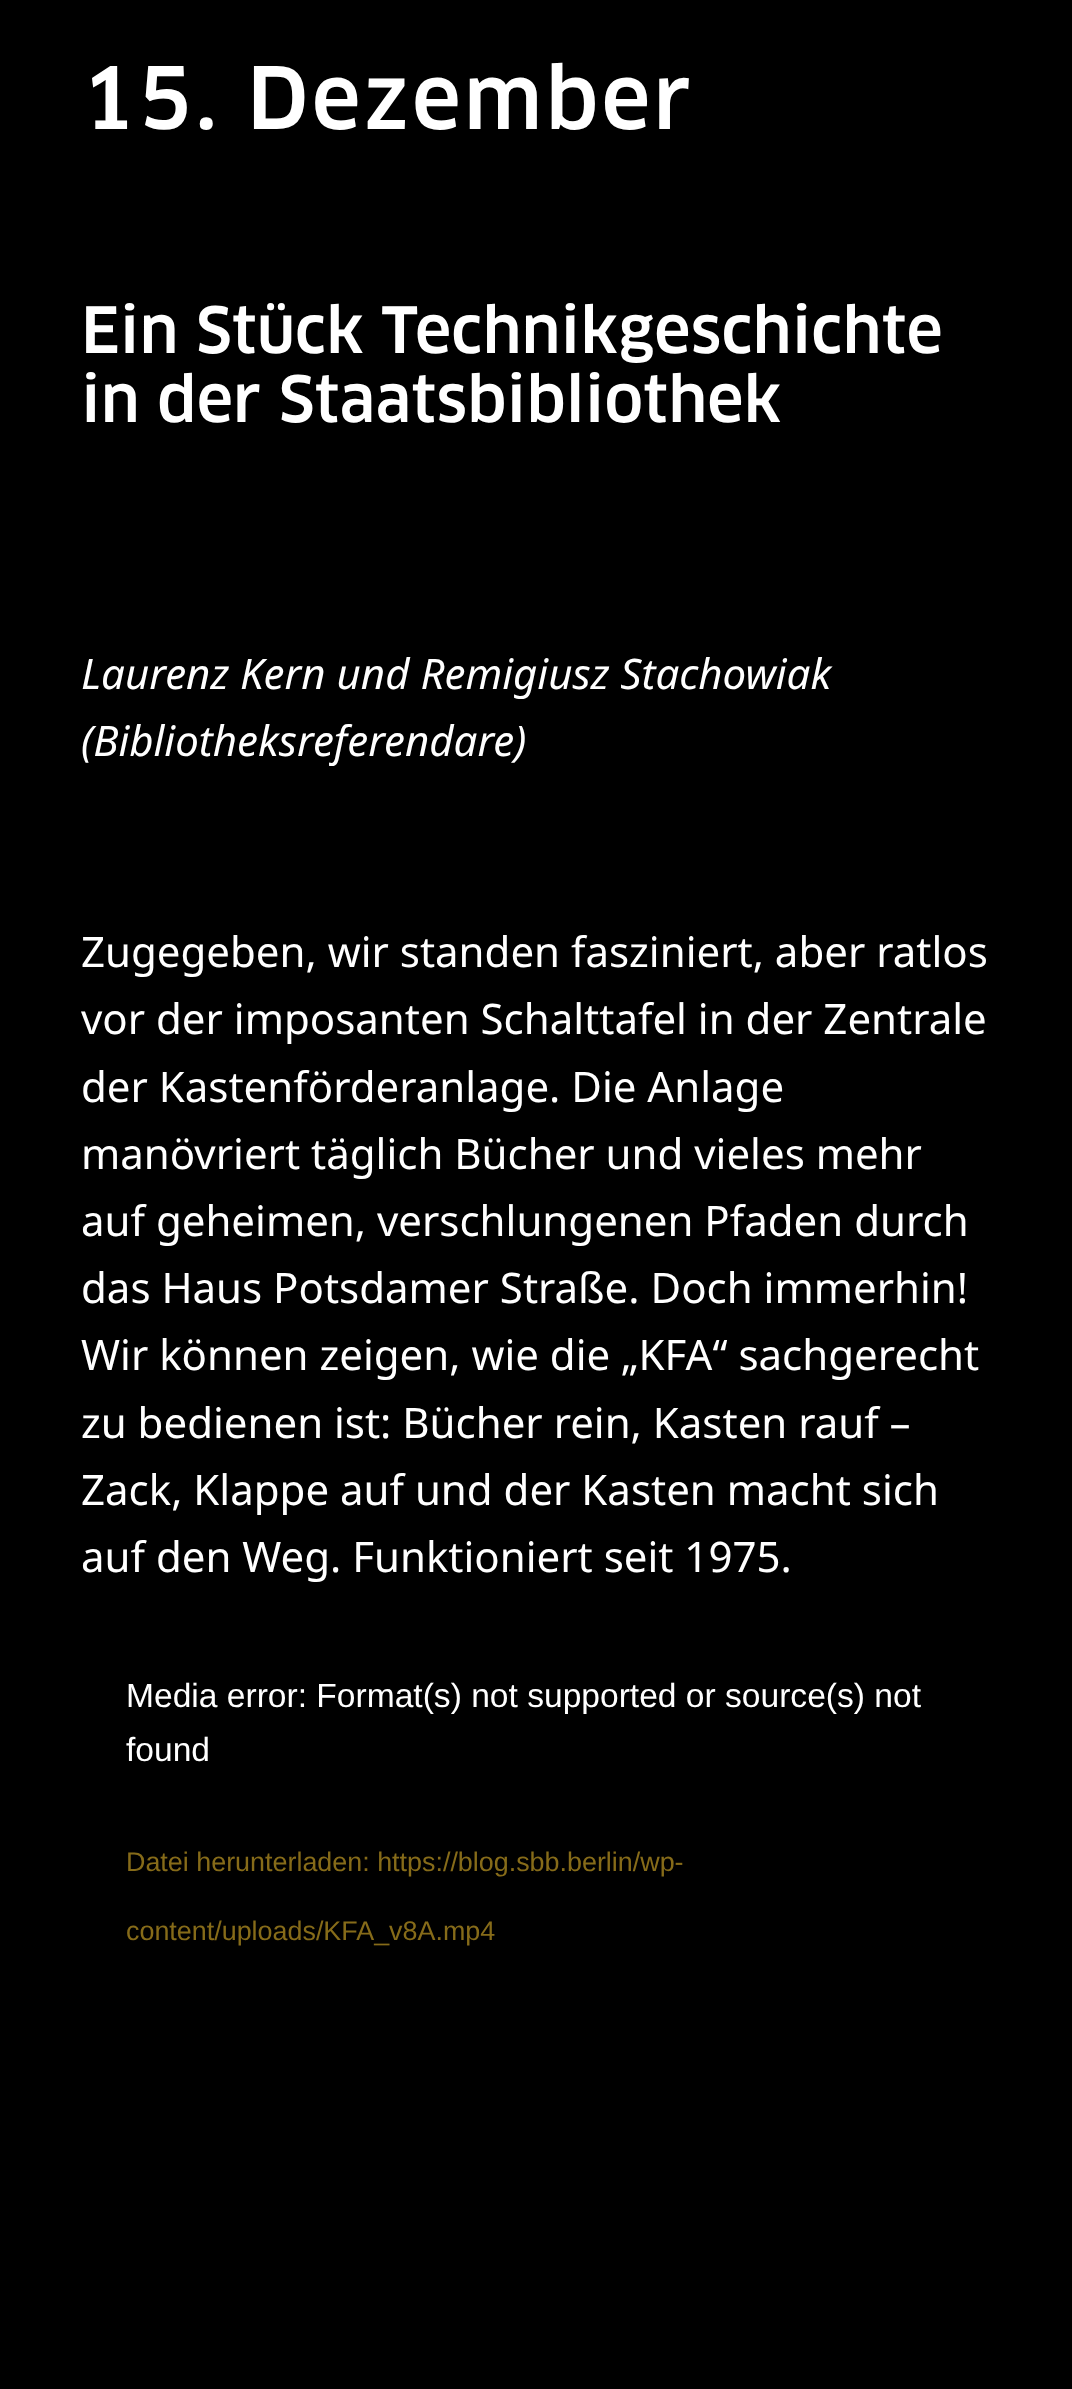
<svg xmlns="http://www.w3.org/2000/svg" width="1072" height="2389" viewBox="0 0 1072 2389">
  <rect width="100%" height="100%" fill="#000"/>
  <text x="81" y="129" font-family="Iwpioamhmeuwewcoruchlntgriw" font-size="84" font-weight="500" letter-spacing="3" fill="#fff">15. Dezember</text>
  <g font-family="Iwpioamhmeuwewcoruchlntgriw" font-size="62.4" font-weight="500" fill="#fff">
    <text x="81" y="353">Ein Stück Technikgeschichte</text>
    <text x="81" y="422">in der Staatsbibliothek</text>
  </g>
  <g font-family="Noto Sans" font-size="42" font-style="italic" fill="#fff">
    <text x="81" y="689">Laurenz Kern und Remigiusz Stachowiak</text>
    <text x="81" y="756">(Bibliotheksreferendare)</text>
  </g>
  <g font-family="Noto Sans" font-size="42" fill="#fff">
    <text x="81" y="967">Zugegeben, wir standen fasziniert, aber ratlos</text>
    <text x="81" y="1034">vor der imposanten Schalttafel in der Zentrale</text>
    <text x="81" y="1102">der Kastenförderanlage. Die Anlage</text>
    <text x="81" y="1169">manövriert täglich Bücher und vieles mehr</text>
    <text x="81" y="1236">auf geheimen, verschlungenen Pfaden durch</text>
    <text x="81" y="1303">das Haus Potsdamer Straße. Doch immerhin!</text>
    <text x="81" y="1370">Wir können zeigen, wie die „KFA“ sachgerecht</text>
    <text x="81" y="1438">zu bedienen ist: Bücher rein, Kasten rauf –</text>
    <text x="81" y="1505">Zack, Klappe auf und der Kasten macht sich</text>
    <text x="81" y="1572">auf den Weg. Funktioniert seit 1975.</text>
  </g>
  <g font-family="Liberation Sans" font-size="33.6" fill="#fff">
    <text x="126" y="1707">Media error: Format(s) not supported or source(s) not</text>
    <text x="126" y="1761">found</text>
  </g>
  <g font-family="Liberation Sans" font-size="26.9" fill="#866b19">
    <text x="126" y="1871">Datei herunterladen: https://blog.sbb.berlin/wp-</text>
    <text x="126" y="1940">content/uploads/KFA_v8A.mp4</text>
  </g>
</svg>
